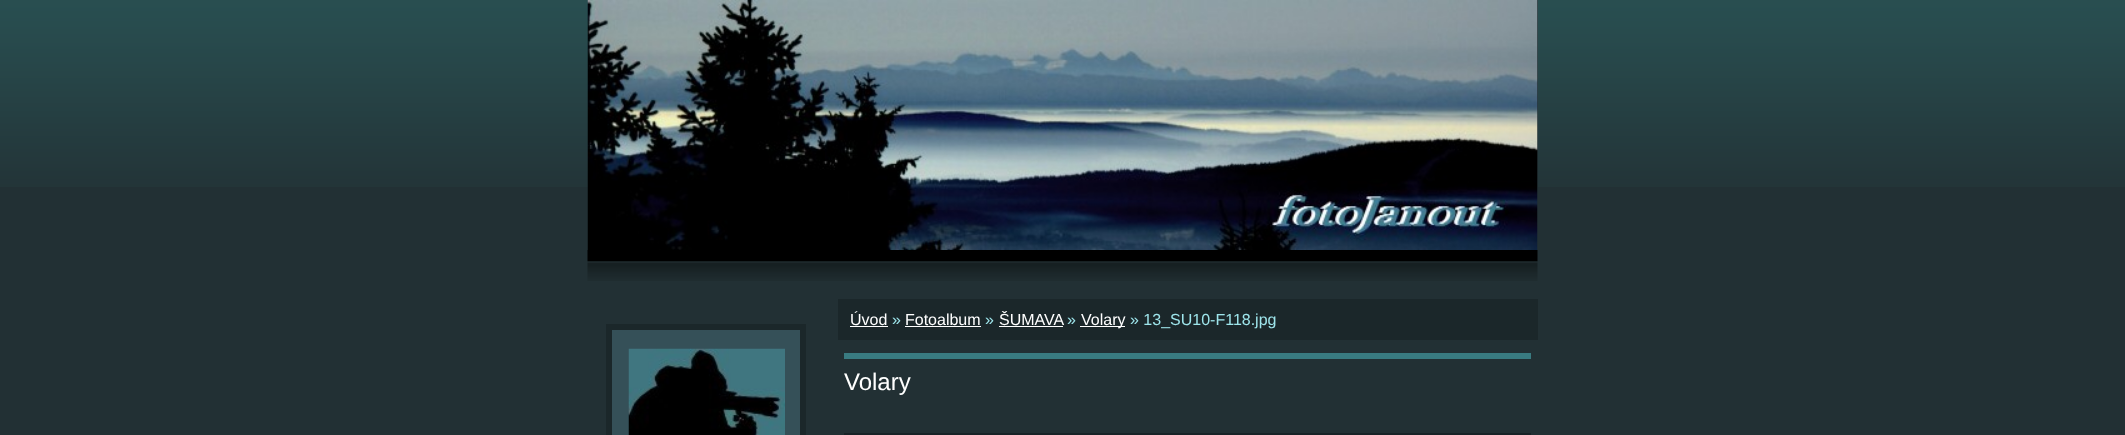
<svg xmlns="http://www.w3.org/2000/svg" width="2125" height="435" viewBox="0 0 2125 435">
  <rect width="100%" height="100%" fill="#223034"/>
  <image x="0" y="0" width="2125" height="187" href="img/1.png"/>
  <image x="587" y="250" width="951" height="31" href="img/2.png"/>
  <path d="M1537 0h1v187H1537z" fill="#223034"/>
  <image x="587" y="0" width="951" height="250" href="img/3.png"/>
  <path d="M609 327h194v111H609z" fill="#355058" stroke="#1b272a" stroke-width="6"/>
  <image x="628" y="348" width="157" height="87" href="img/4.png"/>
  <path d="M838 299h700v41H838z" fill="#1b272a"/>
  <path d="M850 326h38v1H850z" fill="#fff"/>
  <path d="M905 326h76v1H905z" fill="#fff"/>
  <path d="M999 326h64v1H999z" fill="#fff"/>
  <path d="M1080 326h45v1H1080z" fill="#fff"/>
  <path d="M844 353h687v6H844z" fill="#397b81"/>
  <path d="M844 433h687v2H844z" fill="#182327"/>
  <text x="850" y="325" font-family="Liberation Sans" font-size="16" fill="#fff">Úvod</text>
  <text x="892" y="325" font-family="Liberation Sans" font-size="16" fill="#9ee5eb">»</text>
  <text x="905" y="325" font-family="Liberation Sans" font-size="16" fill="#fff">Fotoalbum</text>
  <text x="985" y="325" font-family="Liberation Sans" font-size="16" fill="#9ee5eb">»</text>
  <text x="999" y="325" font-family="Liberation Sans" font-size="16" fill="#fff">ŠUMAVA</text>
  <text x="1067" y="325" font-family="Liberation Sans" font-size="16" fill="#9ee5eb">»</text>
  <text x="1081" y="325" font-family="Liberation Sans" font-size="16" fill="#fff">Volary</text>
  <text x="1130" y="325" font-family="Liberation Sans" font-size="16" fill="#9ee5eb">» 13_SU10-F118.jpg</text>
  <text x="844" y="390" font-family="Liberation Sans" font-size="24" fill="#fff">Volary</text>
</svg>
